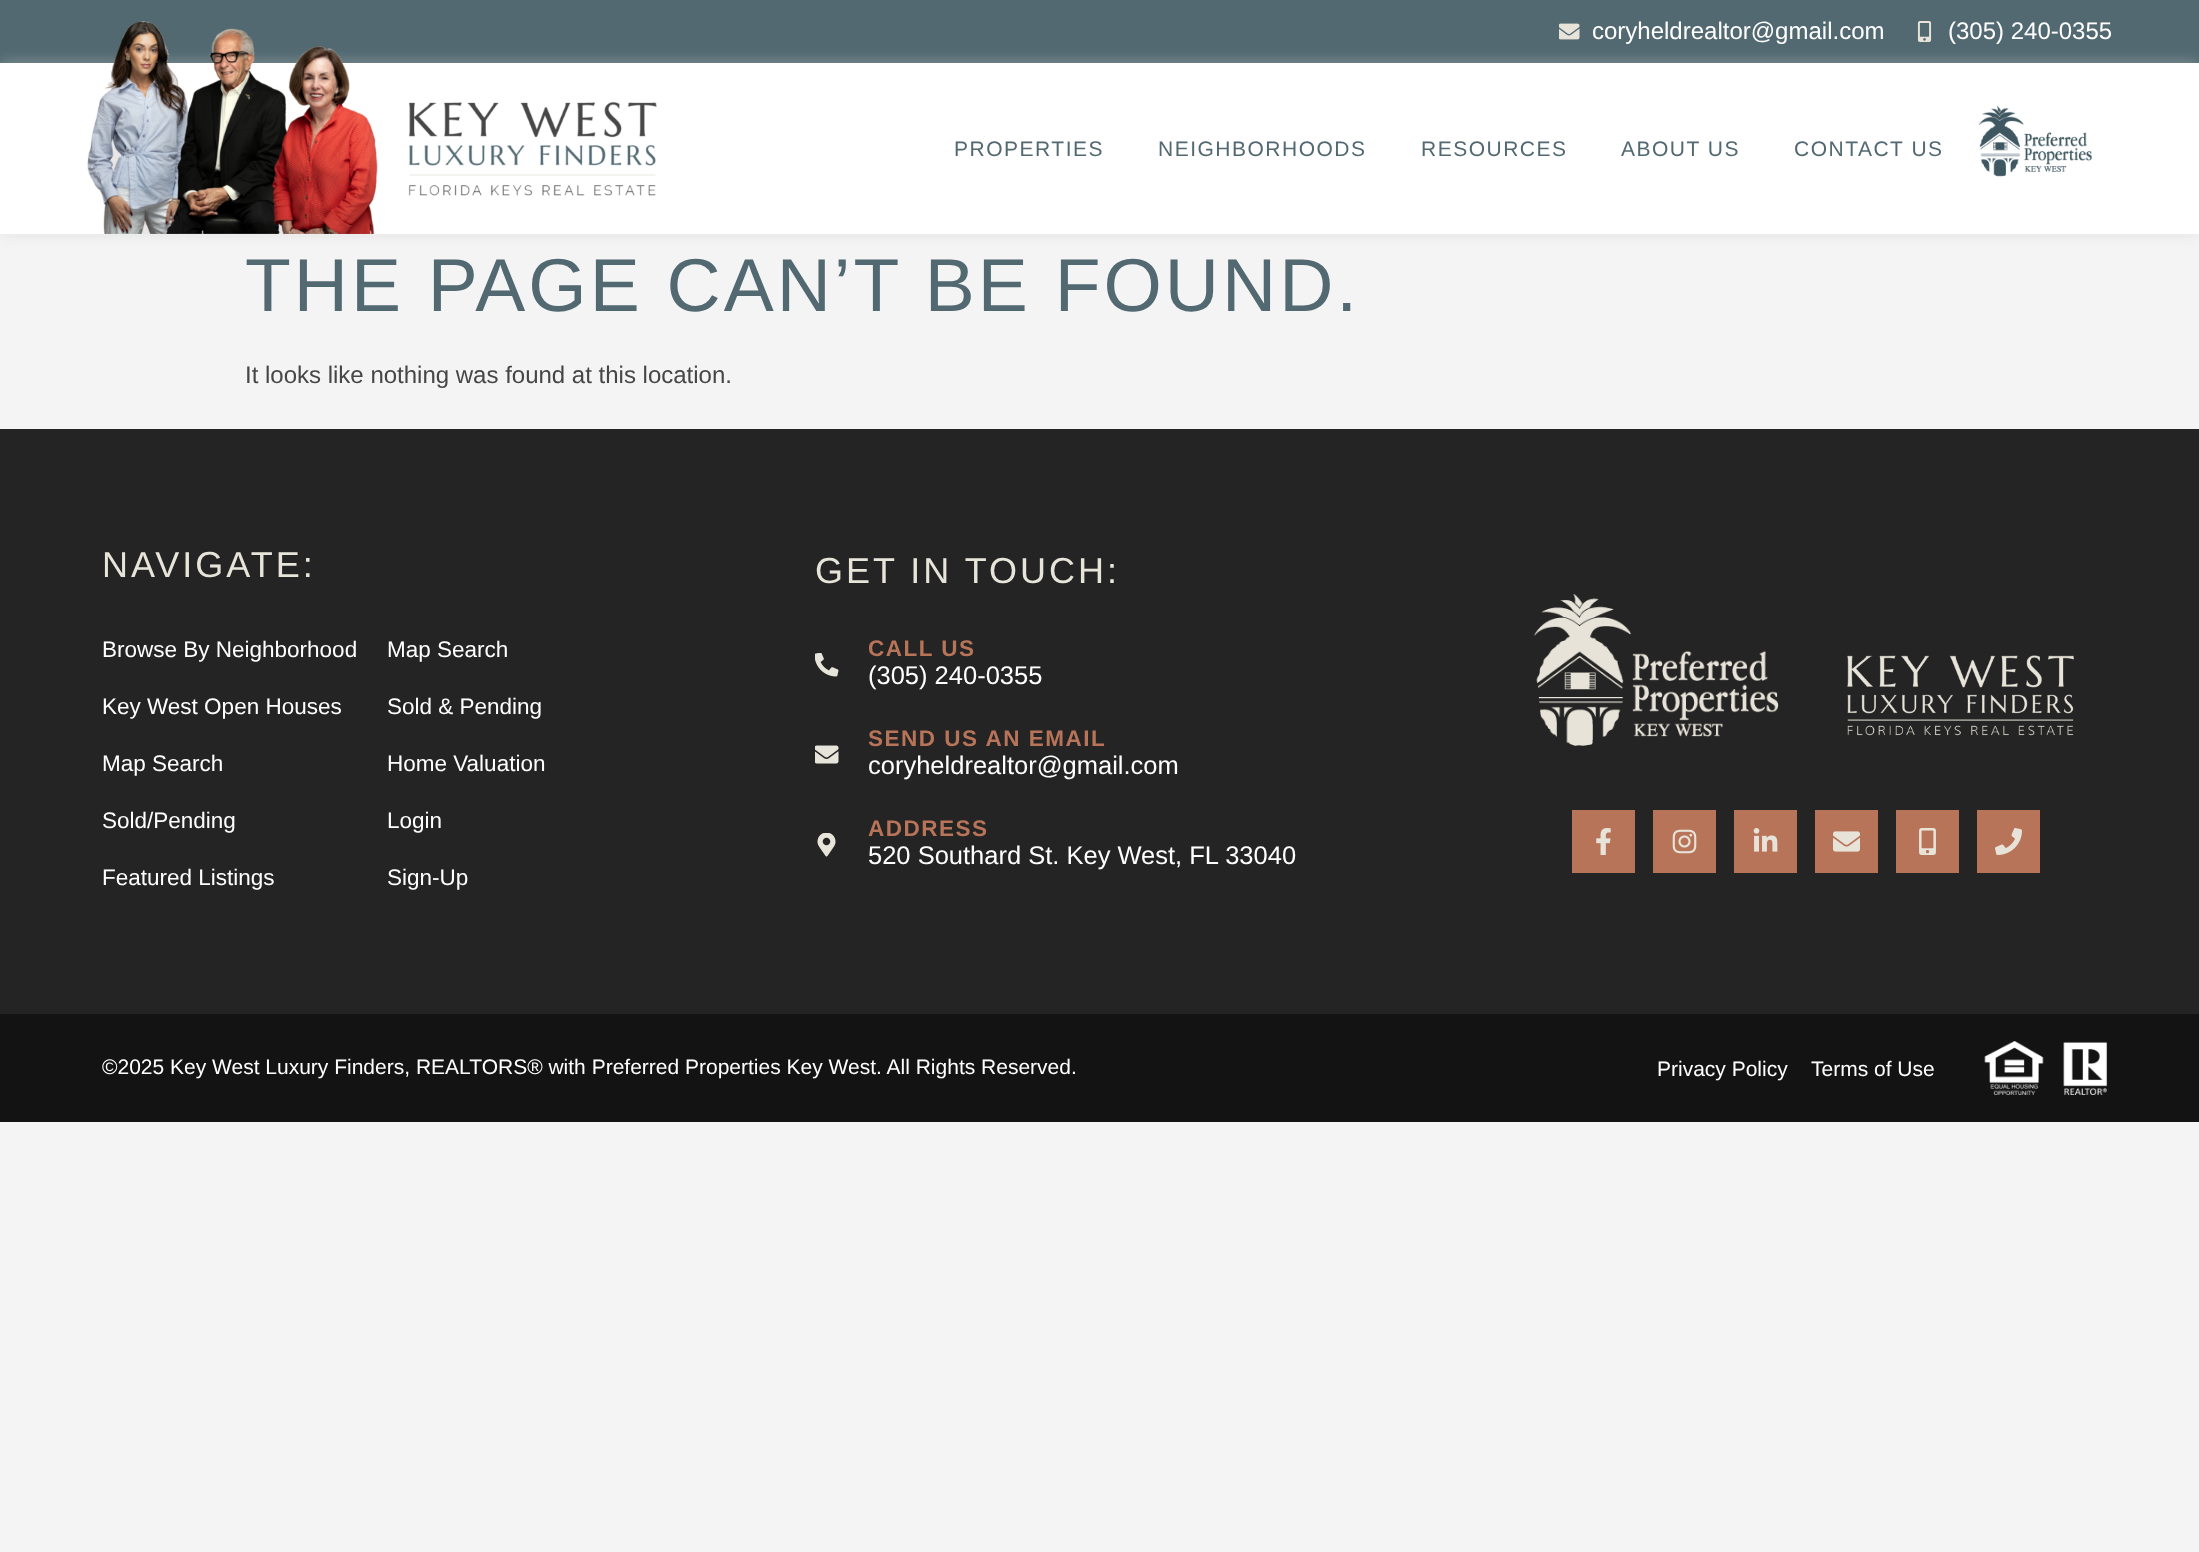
<svg xmlns="http://www.w3.org/2000/svg" width="2199" height="1552" viewBox="0 0 2199 1552">
  <rect width="100%" height="100%" fill="#f4f4f4"/>
  <path d="M0 0h2199v63H0z" fill="#526971"/>
  <image x="1559" y="23" width="21" height="17" href="img/1.png"/>
  <image x="1917" y="21" width="15" height="21" href="img/2.png"/>
  <path d="M0 63h2199v171H0z" fill="#cccccc70" filter="blur(7.5px)"/>
  <path d="M0 63h2199v171H0z" fill="#fff"/>
  <image x="87" y="21" width="570" height="213" href="img/3.png"/>
  <image x="1978" y="106" width="114" height="71" href="img/4.png"/>
  <path d="M0 429h2199v585H0z" fill="#242424"/>
  <image x="815" y="653" width="24" height="24" href="img/5.png"/>
  <image x="815" y="745" width="24" height="19" href="img/6.png"/>
  <image x="817" y="833" width="19" height="24" href="img/7.png"/>
  <image x="1533" y="594" width="246" height="152" href="img/8.png"/>
  <image x="1847" y="655" width="227" height="81" href="img/9.png"/>
  <path d="M1572 810h63v63H1572z" fill="#b87458"/>
  <image x="1596" y="828" width="15" height="27" href="img/10.png"/>
  <path d="M1653 810h63v63H1653z" fill="#b87458"/>
  <image x="1672" y="829" width="25" height="25" href="img/11.png"/>
  <path d="M1734 810h63v63H1734z" fill="#b87458"/>
  <image x="1753" y="828" width="25" height="24" href="img/12.png"/>
  <path d="M1815 810h63v63H1815z" fill="#b87458"/>
  <image x="1833" y="831" width="27" height="21" href="img/13.png"/>
  <path d="M1896 810h63v63H1896z" fill="#b87458"/>
  <image x="1919" y="828" width="17" height="27" href="img/14.png"/>
  <path d="M1977 810h63v63H1977z" fill="#b87458"/>
  <image x="1995" y="828" width="27" height="27" href="img/15.png"/>
  <path d="M0 1014h2199v108H0z" fill="#131313"/>
  <image x="1984" y="1041" width="124" height="54" href="img/16.png"/>
  <g font-family="Liberation Sans" font-size="24" fill="#fff">
    <text x="1592" y="39">coryheldrealtor@gmail.com</text>
    <text x="1948" y="39">(305) 240-0355</text>
  </g>
  <g font-family="Liberation Sans" font-size="21" letter-spacing="1.5" fill="#536972">
    <text x="954" y="156">PROPERTIES</text>
    <text x="1158" y="156">NEIGHBORHOODS</text>
    <text x="1421" y="156">RESOURCES</text>
    <text x="1621" y="156">ABOUT US</text>
    <text x="1794" y="156">CONTACT US</text>
  </g>
  <text x="245" y="311" font-family="Liberation Sans" font-size="75" letter-spacing="3" fill="#536972">THE PAGE CAN’T BE FOUND.</text>
  <text x="245" y="383" font-family="Liberation Sans" font-size="24" fill="#464646">It looks like nothing was found at this location.</text>
  <text x="102" y="577" font-family="Liberation Sans" font-size="36" letter-spacing="3" fill="#e7e4d9">NAVIGATE:</text>
  <g font-family="Liberation Sans" font-size="22.5" fill="#fff">
    <text x="102" y="657">Browse By Neighborhood</text>
    <text x="102" y="714">Key West Open Houses</text>
    <text x="102" y="771">Map Search</text>
    <text x="102" y="828">Sold/Pending</text>
    <text x="102" y="885">Featured Listings</text>
    <text x="387" y="657">Map Search</text>
    <text x="387" y="714">Sold &amp; Pending</text>
    <text x="387" y="771">Home Valuation</text>
    <text x="387" y="828">Login</text>
    <text x="387" y="885">Sign-Up</text>
  </g>
  <text x="815" y="583" font-family="Liberation Sans" font-size="36" letter-spacing="3" fill="#e7e4d9">GET IN TOUCH:</text>
  <text x="868" y="656" font-family="Liberation Sans" font-size="22.5" font-weight="bold" letter-spacing="1.5" fill="#b87458">CALL US</text>
  <text x="868" y="684" font-family="Liberation Sans" font-size="25.5" fill="#fff">(305) 240-0355</text>
  <text x="868" y="746" font-family="Liberation Sans" font-size="22.5" font-weight="bold" letter-spacing="1.5" fill="#b87458">SEND US AN EMAIL</text>
  <text x="868" y="774" font-family="Liberation Sans" font-size="25.5" fill="#fff">coryheldrealtor@gmail.com</text>
  <text x="868" y="836" font-family="Liberation Sans" font-size="22.5" font-weight="bold" letter-spacing="1.5" fill="#b87458">ADDRESS</text>
  <text x="868" y="864" font-family="Liberation Sans" font-size="25.5" fill="#fff">520 Southard St. Key West, FL 33040</text>
  <g font-family="Liberation Sans" font-size="21" fill="#fff">
    <text x="102" y="1074">©2025 Key West Luxury Finders, REALTORS® with Preferred Properties Key West. All Rights Reserved.</text>
    <text x="1657" y="1076">Privacy Policy</text>
    <text x="1811" y="1076">Terms of Use</text>
  </g>
</svg>
